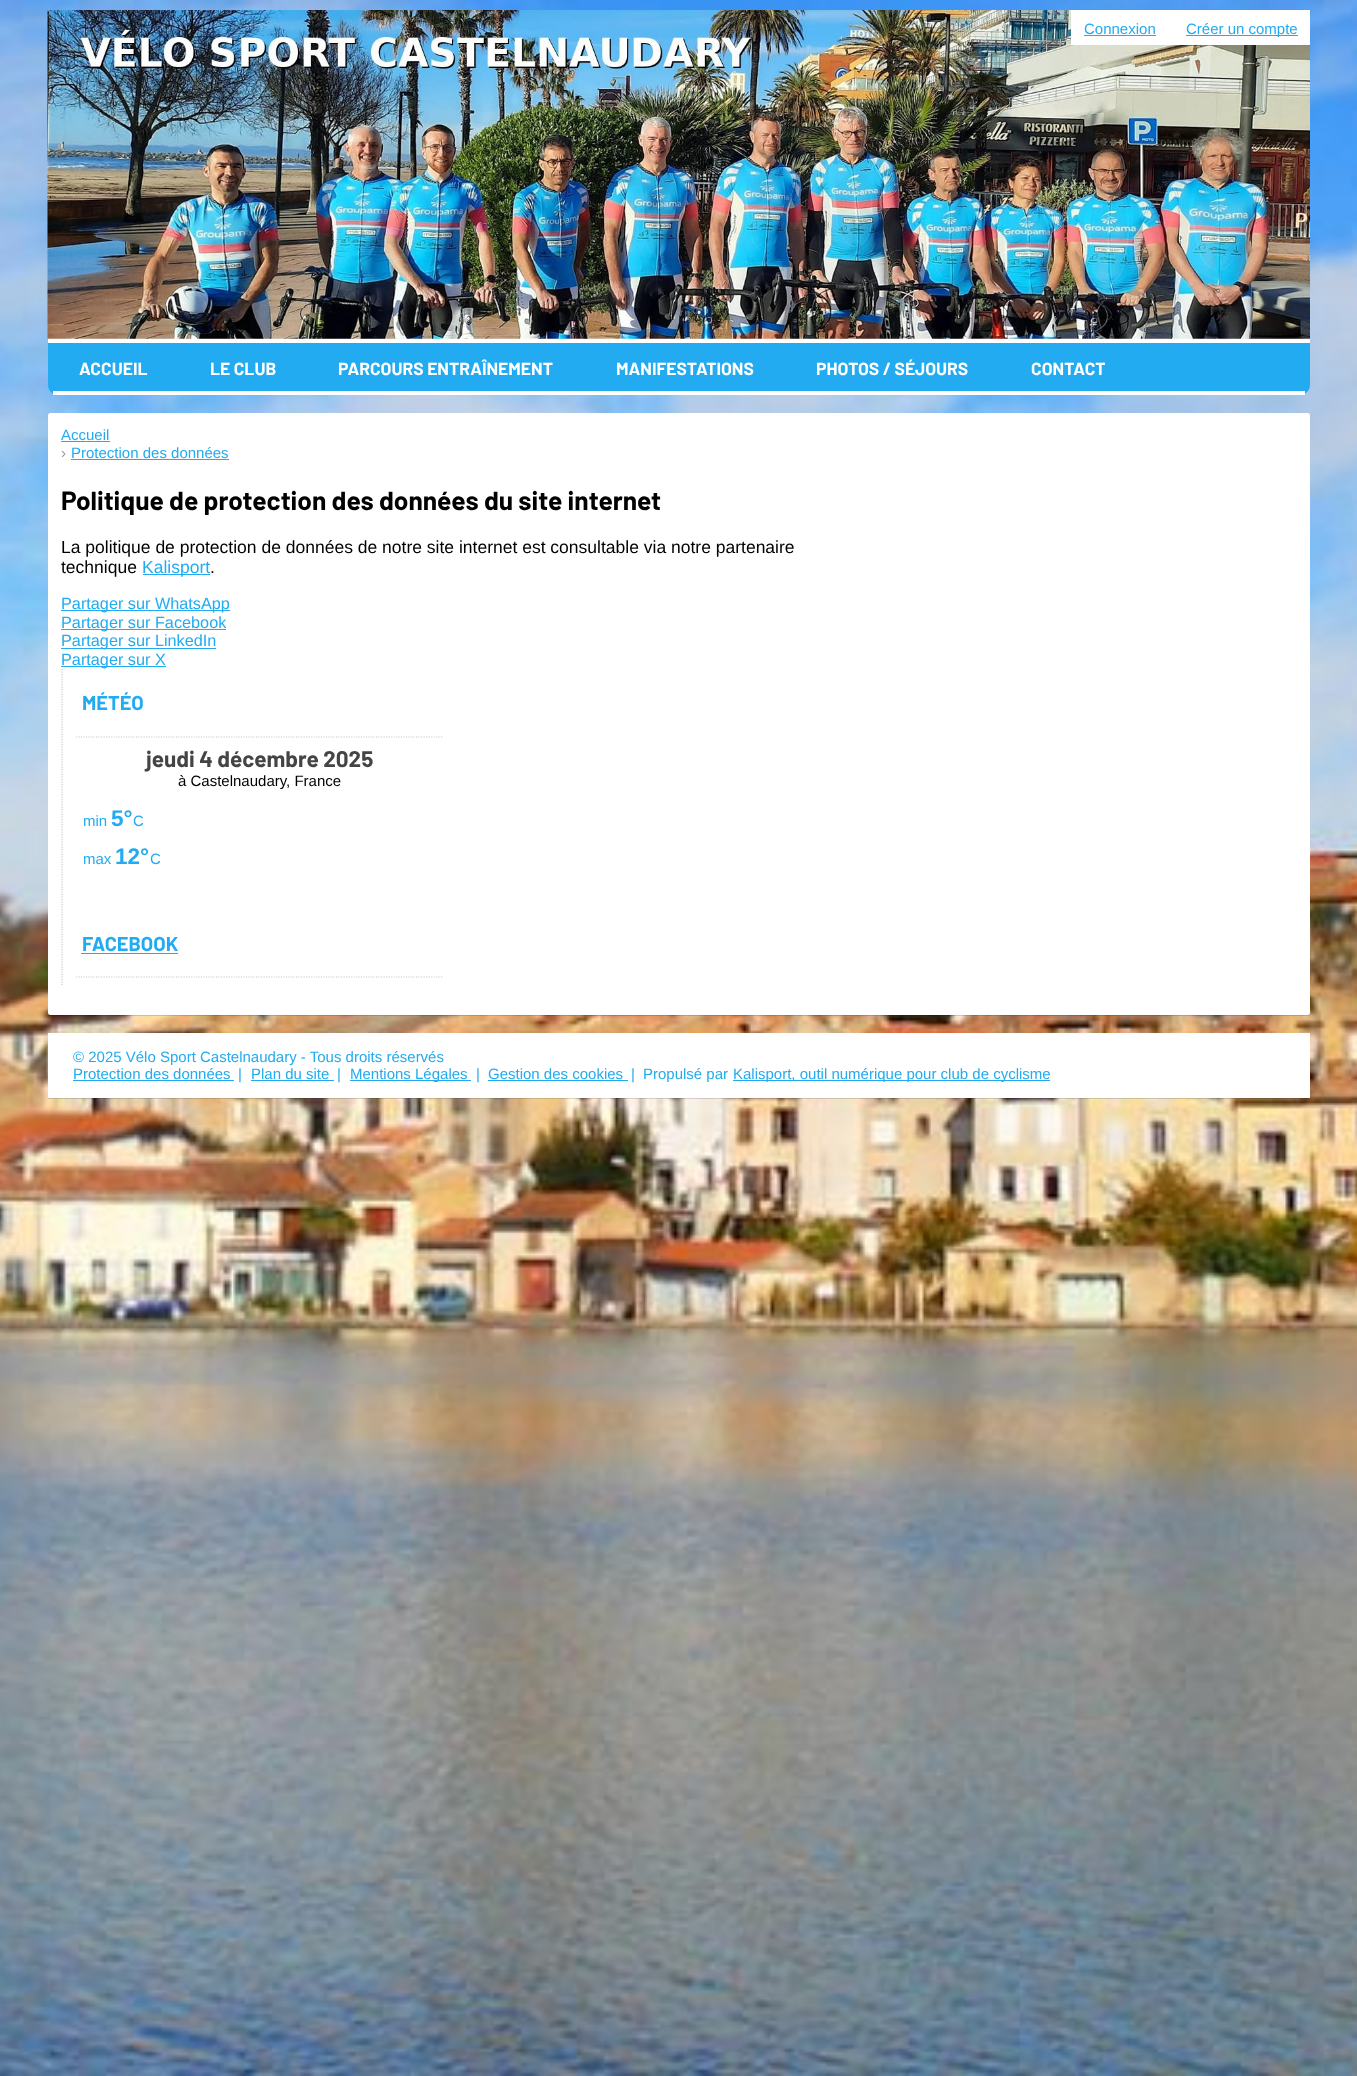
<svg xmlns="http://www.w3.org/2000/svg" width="1357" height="2076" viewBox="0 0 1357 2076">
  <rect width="100%" height="100%" fill="#fff"/>
  <image x="0" y="0" width="1357" height="2076" href="img/1.png"/>
  <path d="M48 338h1262v5H48z" fill="#fff"/>
  <image x="47" y="10" width="1263" height="329" href="img/2.png"/>
  <path d="M1071 10h239v35H1071z" fill="#fff"/>
  <path d="M1084 35h72v1H1084z" fill="#22abf0"/>
  <path d="M1186 35h112v1H1186z" fill="#22abf0"/>
  <path d="M48 343H1310V385C1310 390.5 1305.5 395 1300 395H58C52.5 395 48 390.5 48 385Z" fill="#22abf0"/>
  <path d="M53 391h1252v4H53z" fill="#fff"/>
  <rect x="48" y="414" width="1262" height="602" rx="2.5" fill="#00000026" filter="blur(0.5px)"/>
  <rect x="48" y="413" width="1262" height="602" rx="2.5" fill="#fff"/>
  <path d="M61 441h49v1H61z" fill="#22abf0"/>
  <path d="M71 459h158v1H71z" fill="#22abf0"/>
  <path d="M143 574h67v1H143z" fill="#22abf0"/>
  <path d="M61 610h169v1H61z" fill="#22abf0"/>
  <path d="M61 629h165v1H61z" fill="#22abf0"/>
  <path d="M61 648h155v1H61z" fill="#22abf0"/>
  <path d="M61 666h105v1H61z" fill="#22abf0"/>
  <path d="M62 669V985" fill="none" stroke="#ccc" stroke-width="1.2" stroke-dasharray="1.25 1.25"/>
  <path d="M76 737H442.5" fill="none" stroke="#ccc" stroke-width="1.2" stroke-dasharray="1.25 1.25"/>
  <path d="M76 977H442.5" fill="none" stroke="#ccc" stroke-width="1.2" stroke-dasharray="1.25 1.25"/>
  <path d="M81 953h97v1H81z" fill="#22abf0"/>
  <path d="M48 1034h1262v65H48z" fill="#00000026" filter="blur(0.5px)"/>
  <path d="M48 1033h1262v65H48z" fill="#fff"/>
  <path d="M73 1080h161v1H73z" fill="#22abf0"/>
  <path d="M251 1080h83v1H251z" fill="#22abf0"/>
  <path d="M350 1080h121v1H350z" fill="#22abf0"/>
  <path d="M488 1080h140v1H488z" fill="#22abf0"/>
  <path d="M733 1080h317v1H733z" fill="#22abf0"/>
  <g font-family="Liberation Sans" font-size="15" fill="#22abf0">
    <text x="1084" y="34">Connexion</text>
    <text x="1186" y="34">Créer un compte</text>
  </g>
  <g font-family="Barlow" font-size="17.5" font-weight="bold" fill="#fff">
    <text x="79" y="375">ACCUEIL</text>
    <text x="210" y="375">LE CLUB</text>
    <text x="338" y="375">PARCOURS ENTRAÎNEMENT</text>
    <text x="616" y="375">MANIFESTATIONS</text>
    <text x="816" y="375">PHOTOS / SÉJOURS</text>
    <text x="1031" y="375">CONTACT</text>
  </g>
  <text x="61" y="440" font-family="Liberation Sans" font-size="15" fill="#22abf0">Accueil</text>
  <text x="61" y="458" font-family="Liberation Sans" font-size="15" fill="#999">›</text>
  <text x="71" y="458" font-family="Liberation Sans" font-size="15" fill="#22abf0">Protection des données</text>
  <text x="61" y="510" font-family="Barlow" font-size="26.25" font-weight="bold" fill="#000">Politique de protection des données du site internet</text>
  <g font-family="Liberation Sans" font-size="17.5" fill="#000">
    <text x="61" y="553">La politique de protection de données de notre site internet est consultable via notre partenaire</text>
    <text x="61" y="573">technique</text>
  </g>
  <text x="142" y="573" font-family="Liberation Sans" font-size="17.5" fill="#22abf0">Kalisport</text>
  <text x="210" y="573" font-family="Liberation Sans" font-size="17.5" fill="#000">.</text>
  <g font-family="Liberation Sans" font-size="16.25" fill="#22abf0">
    <text x="61" y="609">Partager sur WhatsApp</text>
    <text x="61" y="628">Partager sur Facebook</text>
    <text x="61" y="646">Partager sur LinkedIn</text>
    <text x="61" y="665">Partager sur X</text>
  </g>
  <text x="82" y="710" font-family="Barlow" font-size="20" font-weight="bold" fill="#22abf0">MÉTÉO</text>
  <text x="146" y="767" font-family="Barlow" font-size="22.5" font-weight="bold" fill="#444">jeudi 4 décembre 2025</text>
  <text x="178" y="786" font-family="Liberation Sans" font-size="15" fill="#000">à Castelnaudary, France</text>
  <text x="83" y="826" font-family="Liberation Sans" font-size="15" fill="#22abf0">min</text>
  <text x="111" y="826" font-family="Liberation Sans" font-size="22.5" font-weight="bold" fill="#22abf0">5°</text>
  <g font-family="Liberation Sans" font-size="15" fill="#22abf0">
    <text x="133" y="826">C</text>
    <text x="83" y="864">max</text>
  </g>
  <text x="115" y="864" font-family="Liberation Sans" font-size="22.5" font-weight="bold" fill="#22abf0">12°</text>
  <text x="150" y="864" font-family="Liberation Sans" font-size="15" fill="#22abf0">C</text>
  <text x="82" y="951" font-family="Barlow" font-size="20" font-weight="bold" fill="#22abf0">FACEBOOK</text>
  <g font-family="Liberation Sans" font-size="15" fill="#22abf0">
    <text x="73" y="1062">© 2025 Vélo Sport Castelnaudary - Tous droits réservés</text>
    <text x="73" y="1079">Protection des données</text>
    <text x="238" y="1079">|</text>
    <text x="251" y="1079">Plan du site</text>
    <text x="337" y="1079">|</text>
    <text x="350" y="1079">Mentions Légales</text>
    <text x="476" y="1079">|</text>
    <text x="488" y="1079">Gestion des cookies</text>
    <text x="631" y="1079">|</text>
    <text x="643" y="1079">Propulsé par</text>
    <text x="733" y="1079">Kalisport, outil numérique pour club de cyclisme</text>
  </g>
</svg>
